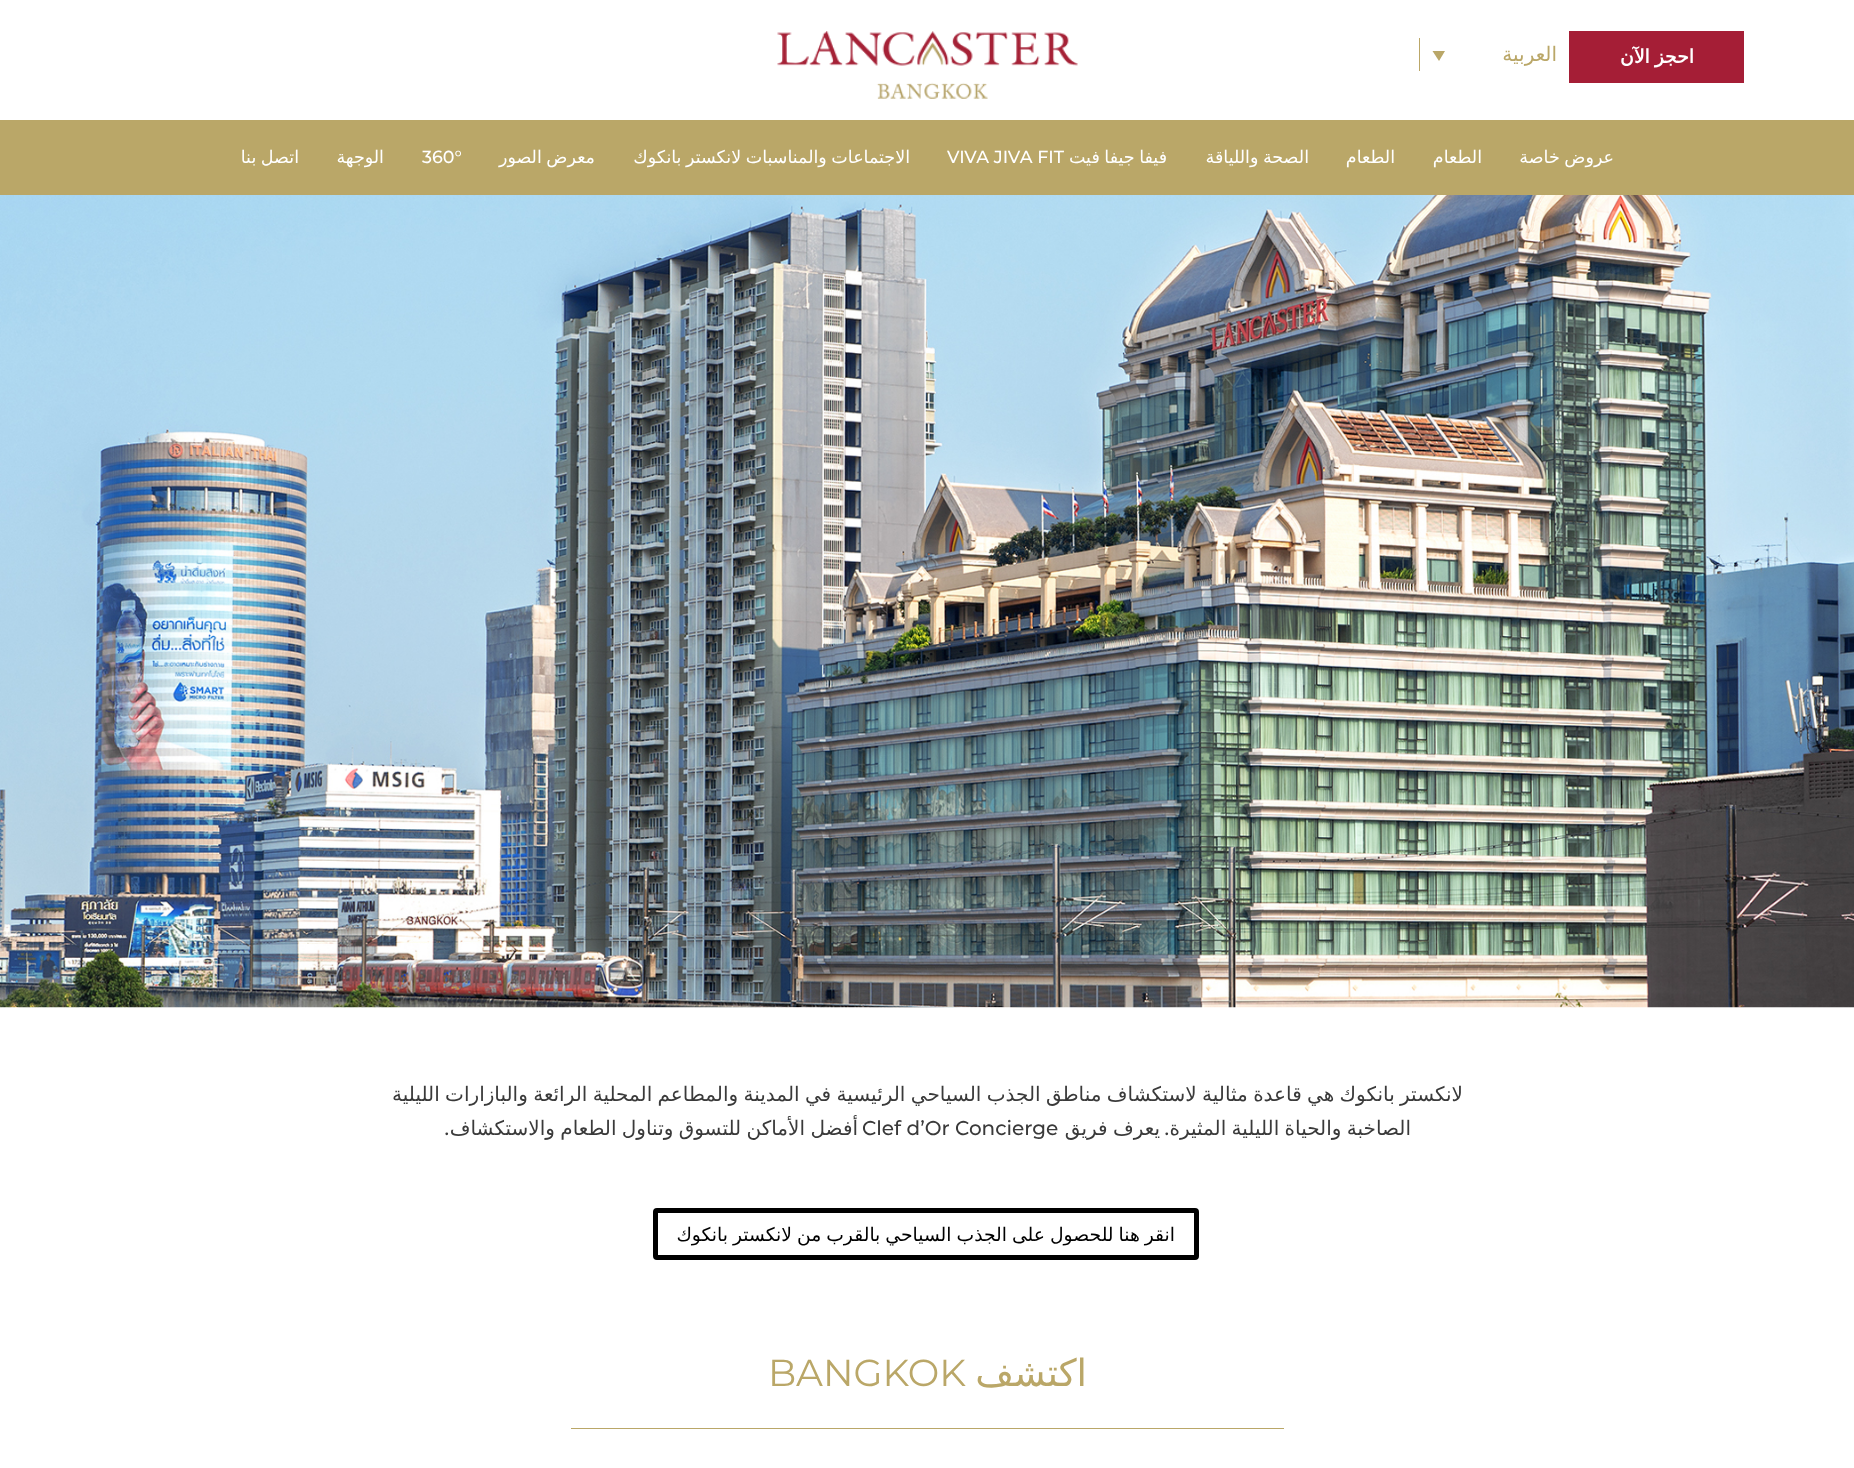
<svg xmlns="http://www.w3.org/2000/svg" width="1854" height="1468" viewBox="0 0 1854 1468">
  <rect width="100%" height="100%" fill="#fff"/>
  <path d="M1569 31h175v52H1569z" fill="#a51e36"/>
  <path d="M1419 38h1v33H1419z" fill="#bba768"/>
  <path d="M1432.5 51H1445L1439 61Z" fill="#baa768"/>
  <image x="777" y="31" width="301" height="68" href="img/1.png"/>
  <path d="M0 120h1854v75H0z" fill="#baa768"/>
  <image x="0" y="195" width="1854" height="813" href="img/2.png"/>
  <rect x="655.5" y="1210.5" width="541" height="47" rx="1.5" fill="none" stroke="#000" stroke-width="5"/>
  <path d="M571 1428h713v1H571z" fill="#baa768"/>
  <text x="1694" y="63" word-spacing="-1" font-family="DejaVu Sans" font-size="18.75" font-weight="bold" direction="rtl" fill="#fff">احجز الآن</text>
  <text x="1557" y="61" font-family="DejaVu Sans" font-size="20" direction="rtl" fill="#baa768">العربية</text>
  <g font-family="DejaVu Sans" font-size="17.5" direction="rtl" fill="#fff">
    <text x="1614" y="163" word-spacing="-1">عروض خاصة</text>
    <text x="1482" y="163">الطعام</text>
    <text x="1395" y="163">الطعام</text>
    <text x="1309" y="163" word-spacing="-1">الصحة واللياقة</text>
    <text x="1167" y="163" word-spacing="-1">فيفا جيفا فيت</text>
  </g>
  <text x="947" y="163" font-family="Montserrat" font-size="17.5" font-weight="100" fill="#fff">VIVA JIVA FIT</text>
  <g font-family="DejaVu Sans" font-size="17.5" direction="rtl" fill="#fff">
    <text x="910" y="163" word-spacing="-1">الاجتماعات والمناسبات لانكستر بانكوك</text>
    <text x="595" y="163" word-spacing="-1">معرض الصور</text>
  </g>
  <text x="422" y="163" font-family="Montserrat" font-size="17.5" font-weight="100" fill="#fff">360°</text>
  <g font-family="DejaVu Sans" font-size="17.5" direction="rtl" fill="#fff">
    <text x="384" y="163">الوجهة</text>
    <text x="299" y="163" word-spacing="-1">اتصل بنا</text>
  </g>
  <g font-family="DejaVu Sans" font-size="20" direction="rtl" fill="#3a3a3a">
    <text x="1463" y="1101" word-spacing="-1">لانكستر بانكوك هي قاعدة مثالية لاستكشاف مناطق الجذب السياحي الرئيسية في المدينة والمطاعم المحلية الرائعة والبازارات الليلية</text>
    <text x="1411" y="1135" word-spacing="-1">الصاخبة والحياة الليلية المثيرة</text>
  </g>
  <text x="1169" y="1135" font-family="Montserrat" font-size="20" font-weight="100" direction="rtl" fill="#3a3a3a">.</text>
  <text x="1160" y="1135" word-spacing="-1" font-family="DejaVu Sans" font-size="20" direction="rtl" fill="#3a3a3a">يعرف فريق</text>
  <text x="862" y="1135" font-family="Montserrat" font-size="20" font-weight="100" fill="#3a3a3a">Clef d’Or Concierge</text>
  <text x="858" y="1135" word-spacing="-1" font-family="DejaVu Sans" font-size="20" direction="rtl" fill="#3a3a3a">أفضل الأماكن للتسوق وتناول الطعام والاستكشاف</text>
  <text x="449" y="1135" font-family="Montserrat" font-size="20" font-weight="100" direction="rtl" fill="#3a3a3a">.</text>
  <text x="1175" y="1241" word-spacing="-1" font-family="DejaVu Sans" font-size="18.75" direction="rtl" fill="#000">انقر هنا للحصول على الجذب السياحي بالقرب من لانكستر بانكوك</text>
  <text x="1087" y="1386" font-family="DejaVu Sans" font-size="37.5" direction="rtl" fill="#baa768">اكتشف</text>
  <text x="768" y="1386" font-family="'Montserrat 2'" font-size="37.5" font-weight="100" fill="#baa768">BANGKOK</text>
</svg>
